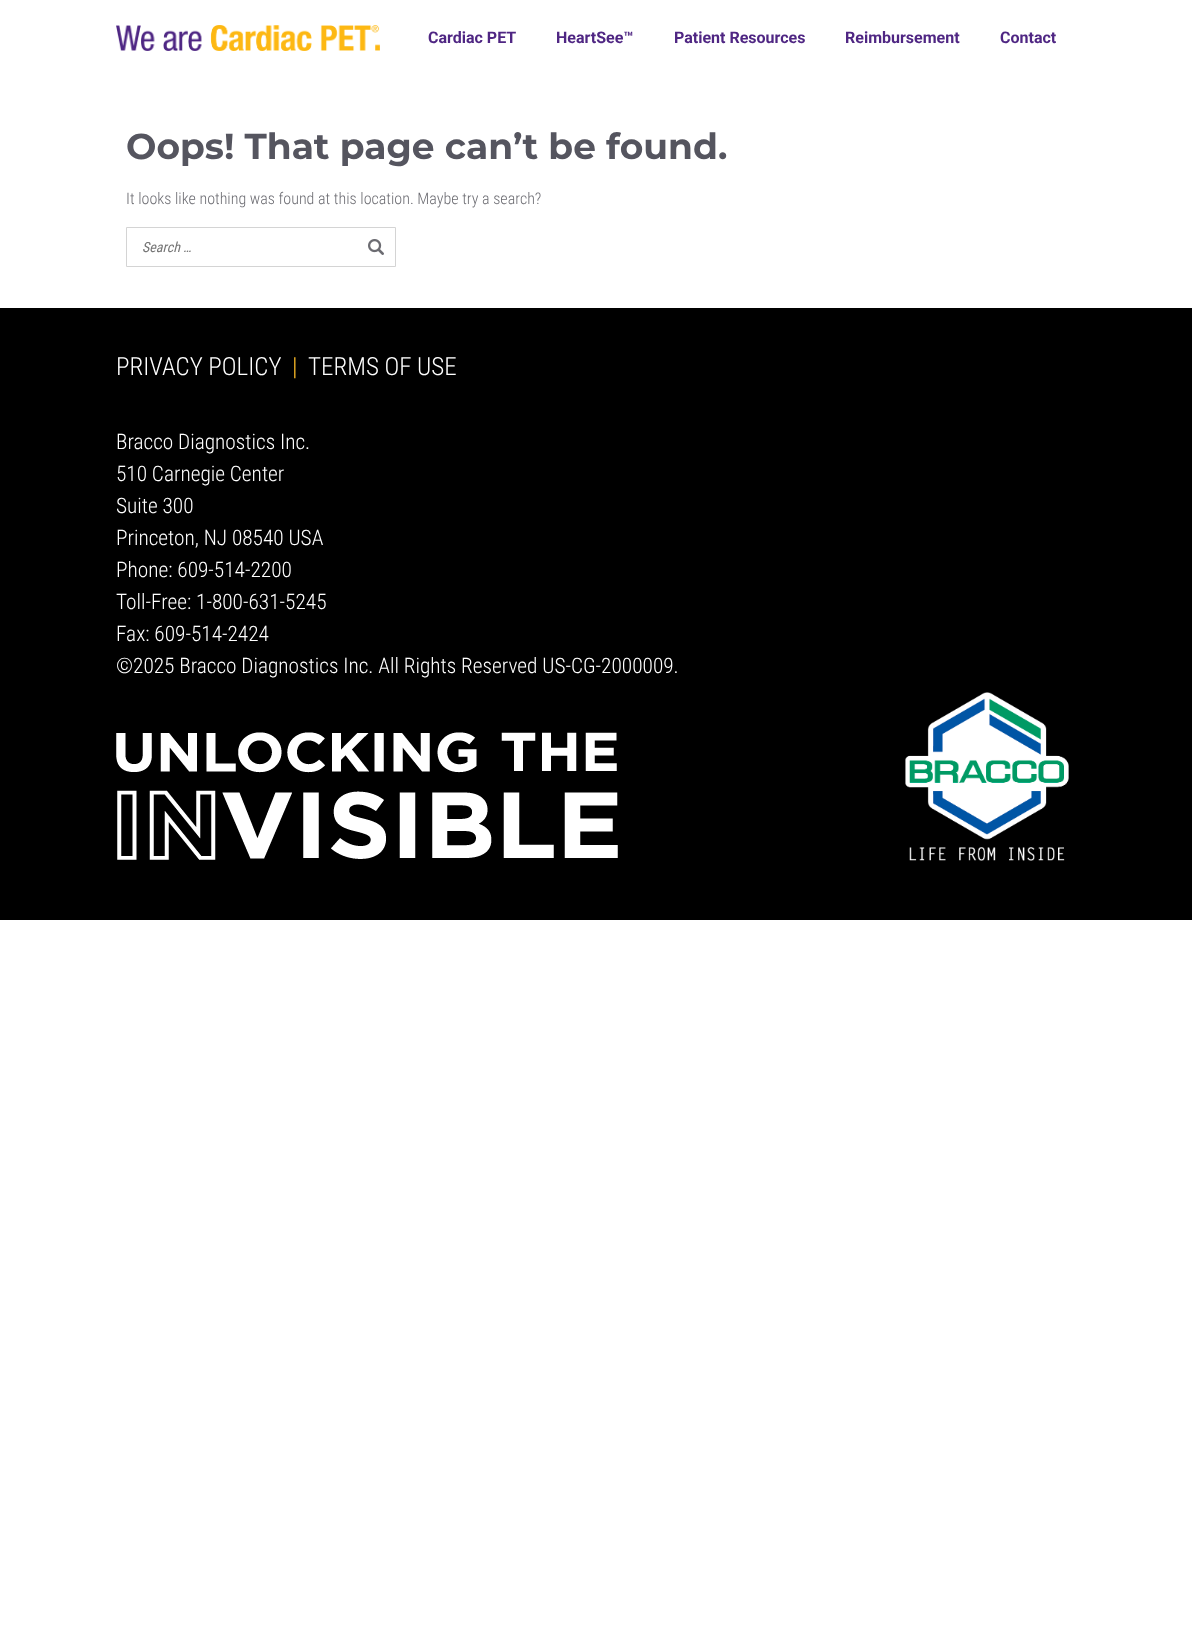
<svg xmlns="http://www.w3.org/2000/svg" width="1192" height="1633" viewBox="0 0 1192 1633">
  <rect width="100%" height="100%" fill="#fff"/>
  <image x="116" y="25" width="264" height="26" href="img/1.png"/>
  <path d="M126.5 227.5h269v39H126.5z" fill="none" stroke="#d4d4d4"/>
  <image x="368" y="239" width="16" height="16" href="img/2.png"/>
  <path d="M0 308h1192v612H0z" fill="#000"/>
  <image x="116" y="732" width="502" height="128" href="img/3.png"/>
  <image x="905" y="692" width="164" height="169" href="img/4.png"/>
  <g font-family="Roboto" font-size="16" font-weight="bold" fill="#4f2683">
    <text x="428" y="43">Cardiac PET</text>
    <text x="556" y="43">HeartSee™</text>
    <text x="674" y="43">Patient Resources</text>
    <text x="845" y="43">Reimbursement</text>
    <text x="1000" y="43">Contact</text>
  </g>
  <text x="126" y="159" font-family="Montserrat" font-size="36" font-weight="100" fill="#55555f">Oops! That page can’t be found.</text>
  <text x="126" y="204" font-family="Roboto Condensed" font-size="16" font-weight="300" fill="#6c6c72">It looks like nothing was found at this location. Maybe try a search?</text>
  <text x="142" y="252" font-family="Roboto Condensed" font-size="14" font-style="italic" fill="#757575">Search …</text>
  <text x="116" y="375" font-family="Roboto Condensed" font-size="25" font-weight="300" fill="#fff">PRIVACY POLICY</text>
  <text x="292" y="375" font-family="Roboto Condensed" font-size="25" font-weight="300" fill="#fbba26">|</text>
  <text x="308" y="375" font-family="Roboto Condensed" font-size="25" font-weight="300" fill="#fff">TERMS OF USE</text>
  <g font-family="Roboto Condensed" font-size="21.3" font-weight="300" fill="#fff">
    <text x="116" y="449">Bracco Diagnostics Inc.</text>
    <text x="116" y="481">510 Carnegie Center</text>
    <text x="116" y="513">Suite 300</text>
    <text x="116" y="545">Princeton, NJ 08540 USA</text>
    <text x="116" y="577">Phone: 609-514-2200</text>
    <text x="116" y="609">Toll-Free: 1-800-631-5245</text>
    <text x="116" y="641">Fax: 609-514-2424</text>
    <text x="116" y="673">©2025 Bracco Diagnostics Inc. All Rights Reserved US-CG-2000009.</text>
  </g>
</svg>
